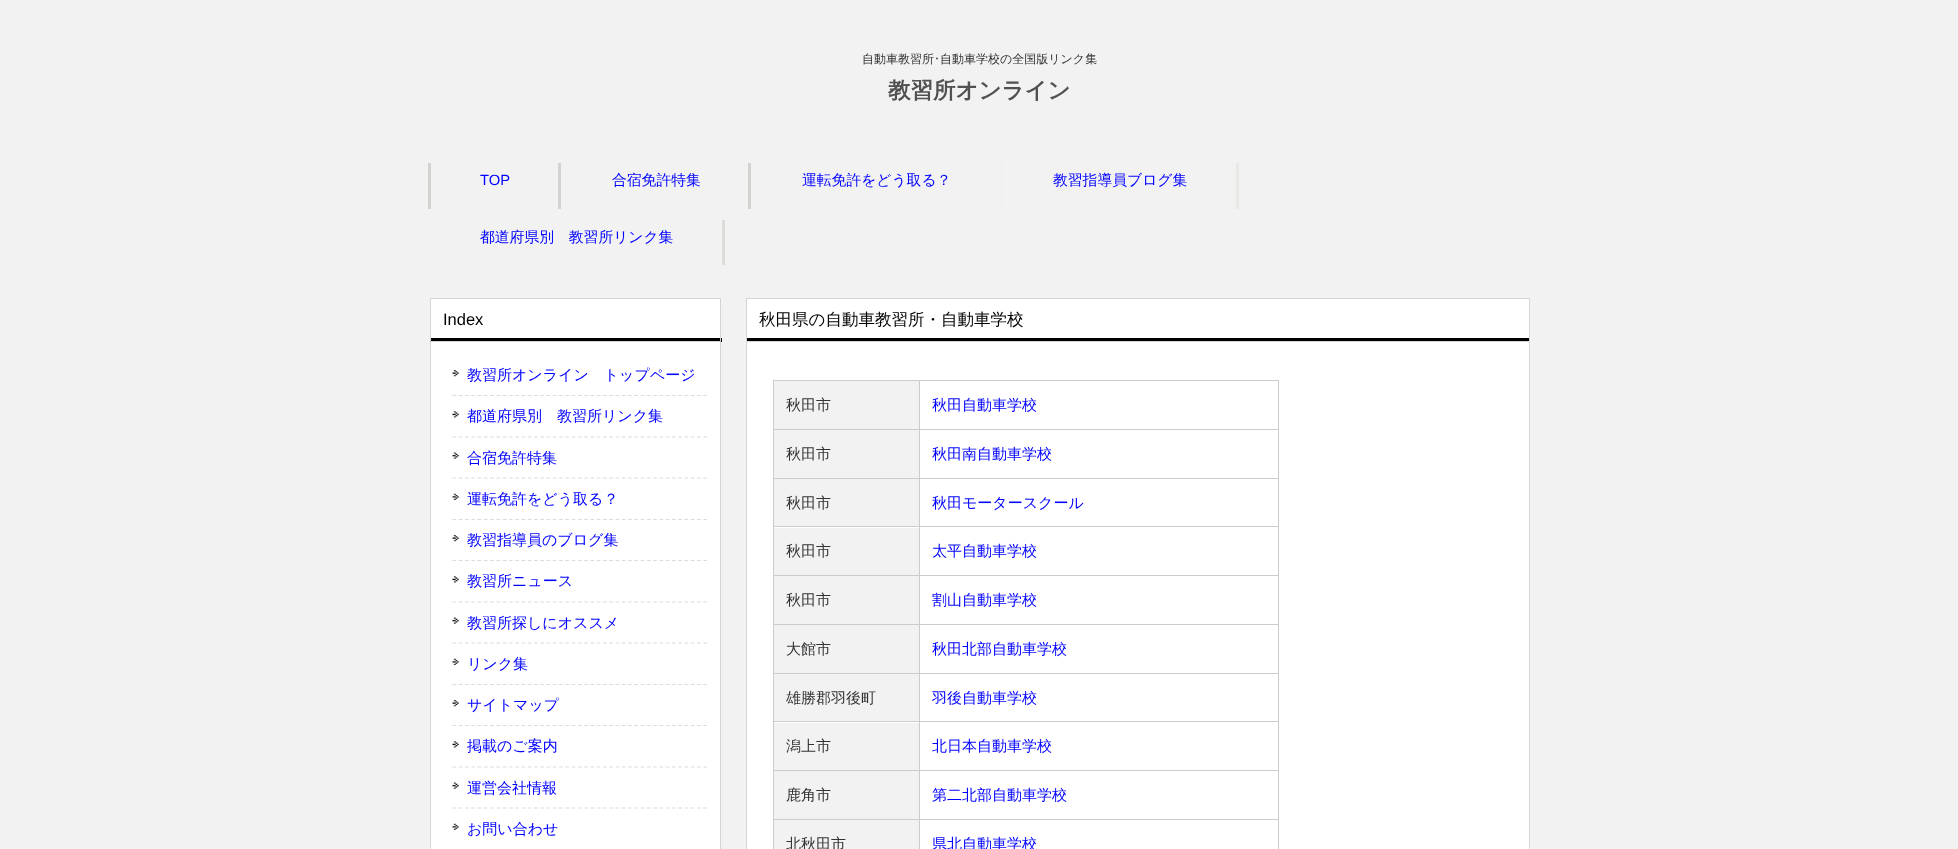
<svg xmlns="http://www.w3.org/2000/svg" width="1958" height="849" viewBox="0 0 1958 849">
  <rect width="100%" height="100%" fill="#f2f2f2"/>
  <path d="M428 163h3v46H428z" fill="#d5d3cf"/>
  <path d="M558 163h3v46H558z" fill="#d5d3cf"/>
  <path d="M748 163h3v46H748z" fill="#d5d3cf"/>
  <path d="M1000 163h3v46H1000z" fill="#f1f0ef"/>
  <path d="M1236 163h3v46H1236z" fill="#e9e8e5"/>
  <path d="M722 220h3v45H722z" fill="#dedcd8"/>
  <path d="M431 299h289v39H431z" fill="#fff"/>
  <path d="M430 338h292v4H430z" fill="#000"/>
  <path d="M430 298h291v1H430z" fill="#d5d5d5"/>
  <path d="M720 298h1v43H720z" fill="#d5d5d5"/>
  <path d="M430 298h1v43H430z" fill="#d5d5d5"/>
  <path d="M430.5 341.5h290v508H430.5z" fill="#fff" stroke="#d5d5d5"/>
  <image x="452" y="370" width="7" height="7" href="img/1.png"/>
  <path d="M452.5 395.5H707.5" fill="none" stroke="#dcdcdc" stroke-width="1.2" stroke-dasharray="3.75 2.52"/>
  <image x="452" y="411" width="7" height="7" href="img/2.png"/>
  <path d="M452.5 437H707.5" fill="none" stroke="#dcdcdc" stroke-width="1.2" stroke-dasharray="3.75 2.52"/>
  <image x="452" y="452" width="7" height="7" href="img/3.png"/>
  <path d="M452.5 478H707.5" fill="none" stroke="#dcdcdc" stroke-width="1.2" stroke-dasharray="3.75 2.52"/>
  <image x="452" y="493" width="7" height="7" href="img/4.png"/>
  <path d="M452.5 519.5H707.5" fill="none" stroke="#dcdcdc" stroke-width="1.2" stroke-dasharray="3.75 2.52"/>
  <image x="452" y="535" width="7" height="7" href="img/1.png"/>
  <path d="M452.5 560.5H707.5" fill="none" stroke="#dcdcdc" stroke-width="1.2" stroke-dasharray="3.75 2.52"/>
  <image x="452" y="576" width="7" height="7" href="img/2.png"/>
  <path d="M452.5 602H707.5" fill="none" stroke="#dcdcdc" stroke-width="1.2" stroke-dasharray="3.75 2.52"/>
  <image x="452" y="617" width="7" height="7" href="img/3.png"/>
  <path d="M452.5 643H707.5" fill="none" stroke="#dcdcdc" stroke-width="1.2" stroke-dasharray="3.75 2.52"/>
  <image x="452" y="658" width="7" height="7" href="img/4.png"/>
  <path d="M452.5 684.5H707.5" fill="none" stroke="#dcdcdc" stroke-width="1.2" stroke-dasharray="3.75 2.52"/>
  <image x="452" y="700" width="7" height="7" href="img/1.png"/>
  <path d="M452.5 725.5H707.5" fill="none" stroke="#dcdcdc" stroke-width="1.2" stroke-dasharray="3.75 2.52"/>
  <image x="452" y="741" width="7" height="7" href="img/2.png"/>
  <path d="M452.5 767H707.5" fill="none" stroke="#dcdcdc" stroke-width="1.2" stroke-dasharray="3.75 2.52"/>
  <image x="452" y="782" width="7" height="7" href="img/3.png"/>
  <path d="M452.5 808H707.5" fill="none" stroke="#dcdcdc" stroke-width="1.2" stroke-dasharray="3.75 2.52"/>
  <image x="452" y="823" width="7" height="7" href="img/4.png"/>
  <path d="M747 299h782v39H747z" fill="#fff"/>
  <path d="M746 338h784v3H746z" fill="#000"/>
  <path d="M746 298h784v1H746z" fill="#d5d5d5"/>
  <path d="M1529 298h1v43H1529z" fill="#d5d5d5"/>
  <path d="M746 298h1v43H746z" fill="#d5d5d5"/>
  <path d="M746.5 341.5h783v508H746.5z" fill="#fff" stroke="#d5d5d5"/>
  <path d="M773 380h506v1H773z" fill="#ccc"/>
  <path d="M1278 380h1v469H1278z" fill="#ccc"/>
  <path d="M773 380h1v469H773z" fill="#ccc"/>
  <path d="M774 381h145v48H774z" fill="#f2f2f2"/>
  <path d="M919 819h1v30H919z" fill="#ccc"/>
  <path d="M919 819h360v1H919z" fill="#ccc"/>
  <path d="M919 770h1v50H919z" fill="#ccc"/>
  <path d="M919 770h360v1H919z" fill="#ccc"/>
  <path d="M919 721h1v50H919z" fill="#ccc"/>
  <path d="M919 721h360v1H919z" fill="#ccc"/>
  <path d="M919 673h1v50H919z" fill="#ccc"/>
  <path d="M919 673h360v1H919z" fill="#ccc"/>
  <path d="M919 624h1v50H919z" fill="#ccc"/>
  <path d="M919 624h360v1H919z" fill="#ccc"/>
  <path d="M919 575h1v50H919z" fill="#ccc"/>
  <path d="M919 575h360v1H919z" fill="#ccc"/>
  <path d="M919 526h1v50H919z" fill="#ccc"/>
  <path d="M919 526h360v1H919z" fill="#ccc"/>
  <path d="M919 478h1v50H919z" fill="#ccc"/>
  <path d="M919 478h360v1H919z" fill="#ccc"/>
  <path d="M919 429h1v50H919z" fill="#ccc"/>
  <path d="M919 429h360v1H919z" fill="#ccc"/>
  <path d="M919 380h1v50H919z" fill="#ccc"/>
  <path d="M773 429h147v1H773z" fill="#ccc"/>
  <path d="M774 430h145v48H774z" fill="#f2f2f2"/>
  <path d="M773 478h147v1H773z" fill="#ccc"/>
  <path d="M774 479h145v47H774z" fill="#f2f2f2"/>
  <path d="M773 526h147v1H773z" fill="#ccc"/>
  <path d="M774 528h145v47H774z" fill="#f2f2f2"/>
  <path d="M773 575h147v1H773z" fill="#ccc"/>
  <path d="M774 576h145v48H774z" fill="#f2f2f2"/>
  <path d="M773 624h147v1H773z" fill="#ccc"/>
  <path d="M774 625h145v48H774z" fill="#f2f2f2"/>
  <path d="M773 673h147v1H773z" fill="#ccc"/>
  <path d="M774 674h145v47H774z" fill="#f2f2f2"/>
  <path d="M773 721h147v1H773z" fill="#ccc"/>
  <path d="M774 723h145v47H774z" fill="#f2f2f2"/>
  <path d="M773 770h147v1H773z" fill="#ccc"/>
  <path d="M774 771h145v48H774z" fill="#f2f2f2"/>
  <path d="M773 819h147v1H773z" fill="#ccc"/>
  <path d="M774 820h145v29H774z" fill="#f2f2f2"/>
  <text x="862" y="63" font-family="WenQuanYi Zen Hei" font-size="12" font-weight="500" fill="#333">自動車教習所</text>
  <text x="934" y="63" font-family="IPAPGothic" font-size="12" fill="#333">･</text>
  <text x="940" y="63" font-family="WenQuanYi Zen Hei" font-size="12" font-weight="500" fill="#333">自動車学校の全国版リンク集</text>
  <text x="888" y="98" font-family="WenQuanYi Zen Hei" font-size="22.5" font-weight="bold" fill="#515151">教習所オンライン</text>
  <text x="480" y="185" font-family="Liberation Sans" font-size="14.8" fill="#00f">TOP</text>
  <g font-family="WenQuanYi Zen Hei" font-size="14.8" font-weight="500" fill="#00f">
    <text x="612" y="185">合宿免許特集</text>
    <text x="802" y="185">運転免許をどう取る？</text>
    <text x="1053" y="185">教習指導員ブログ集</text>
    <text x="480" y="242">都道府県別　教習所リンク集</text>
  </g>
  <text x="443" y="325" font-family="Liberation Sans" font-size="16.5" fill="#000">Index</text>
  <g font-family="WenQuanYi Zen Hei" font-size="15" font-weight="500" fill="#00f">
    <text x="467" y="380">教習所オンライン　トップページ</text>
    <text x="467" y="421">都道府県別　教習所リンク集</text>
    <text x="467" y="463">合宿免許特集</text>
    <text x="467" y="504">運転免許をどう取る？</text>
    <text x="467" y="545">教習指導員のブログ集</text>
    <text x="467" y="586">教習所ニュース</text>
    <text x="467" y="628">教習所探しにオススメ</text>
    <text x="467" y="669">リンク集</text>
    <text x="467" y="710">サイトマップ</text>
    <text x="467" y="751">掲載のご案内</text>
    <text x="467" y="793">運営会社情報</text>
    <text x="467" y="834">お問い合わせ</text>
  </g>
  <text x="759" y="325" font-family="WenQuanYi Zen Hei" font-size="16.5" font-weight="500" fill="#000">秋田県の自動車教習所・自動車学校</text>
  <text x="786" y="410" font-family="WenQuanYi Zen Hei" font-size="15" font-weight="500" fill="#333">秋田市</text>
  <text x="932" y="410" font-family="WenQuanYi Zen Hei" font-size="15" font-weight="500" fill="#00f">秋田自動車学校</text>
  <text x="786" y="459" font-family="WenQuanYi Zen Hei" font-size="15" font-weight="500" fill="#333">秋田市</text>
  <text x="932" y="459" font-family="WenQuanYi Zen Hei" font-size="15" font-weight="500" fill="#00f">秋田南自動車学校</text>
  <text x="786" y="508" font-family="WenQuanYi Zen Hei" font-size="15" font-weight="500" fill="#333">秋田市</text>
  <text x="932" y="508" font-family="WenQuanYi Zen Hei" font-size="15" font-weight="500" fill="#00f">秋田モータースクール</text>
  <text x="786" y="556" font-family="WenQuanYi Zen Hei" font-size="15" font-weight="500" fill="#333">秋田市</text>
  <text x="932" y="556" font-family="WenQuanYi Zen Hei" font-size="15" font-weight="500" fill="#00f">太平自動車学校</text>
  <text x="786" y="605" font-family="WenQuanYi Zen Hei" font-size="15" font-weight="500" fill="#333">秋田市</text>
  <text x="932" y="605" font-family="WenQuanYi Zen Hei" font-size="15" font-weight="500" fill="#00f">割山自動車学校</text>
  <text x="786" y="654" font-family="WenQuanYi Zen Hei" font-size="15" font-weight="500" fill="#333">大館市</text>
  <text x="932" y="654" font-family="WenQuanYi Zen Hei" font-size="15" font-weight="500" fill="#00f">秋田北部自動車学校</text>
  <text x="786" y="703" font-family="WenQuanYi Zen Hei" font-size="15" font-weight="500" fill="#333">雄勝郡羽後町</text>
  <text x="932" y="703" font-family="WenQuanYi Zen Hei" font-size="15" font-weight="500" fill="#00f">羽後自動車学校</text>
  <text x="786" y="751" font-family="WenQuanYi Zen Hei" font-size="15" font-weight="500" fill="#333">潟上市</text>
  <text x="932" y="751" font-family="WenQuanYi Zen Hei" font-size="15" font-weight="500" fill="#00f">北日本自動車学校</text>
  <text x="786" y="800" font-family="WenQuanYi Zen Hei" font-size="15" font-weight="500" fill="#333">鹿角市</text>
  <text x="932" y="800" font-family="WenQuanYi Zen Hei" font-size="15" font-weight="500" fill="#00f">第二北部自動車学校</text>
  <text x="786" y="849" font-family="WenQuanYi Zen Hei" font-size="15" font-weight="500" fill="#333">北秋田市</text>
  <text x="932" y="849" font-family="WenQuanYi Zen Hei" font-size="15" font-weight="500" fill="#00f">県北自動車学校</text>
</svg>
